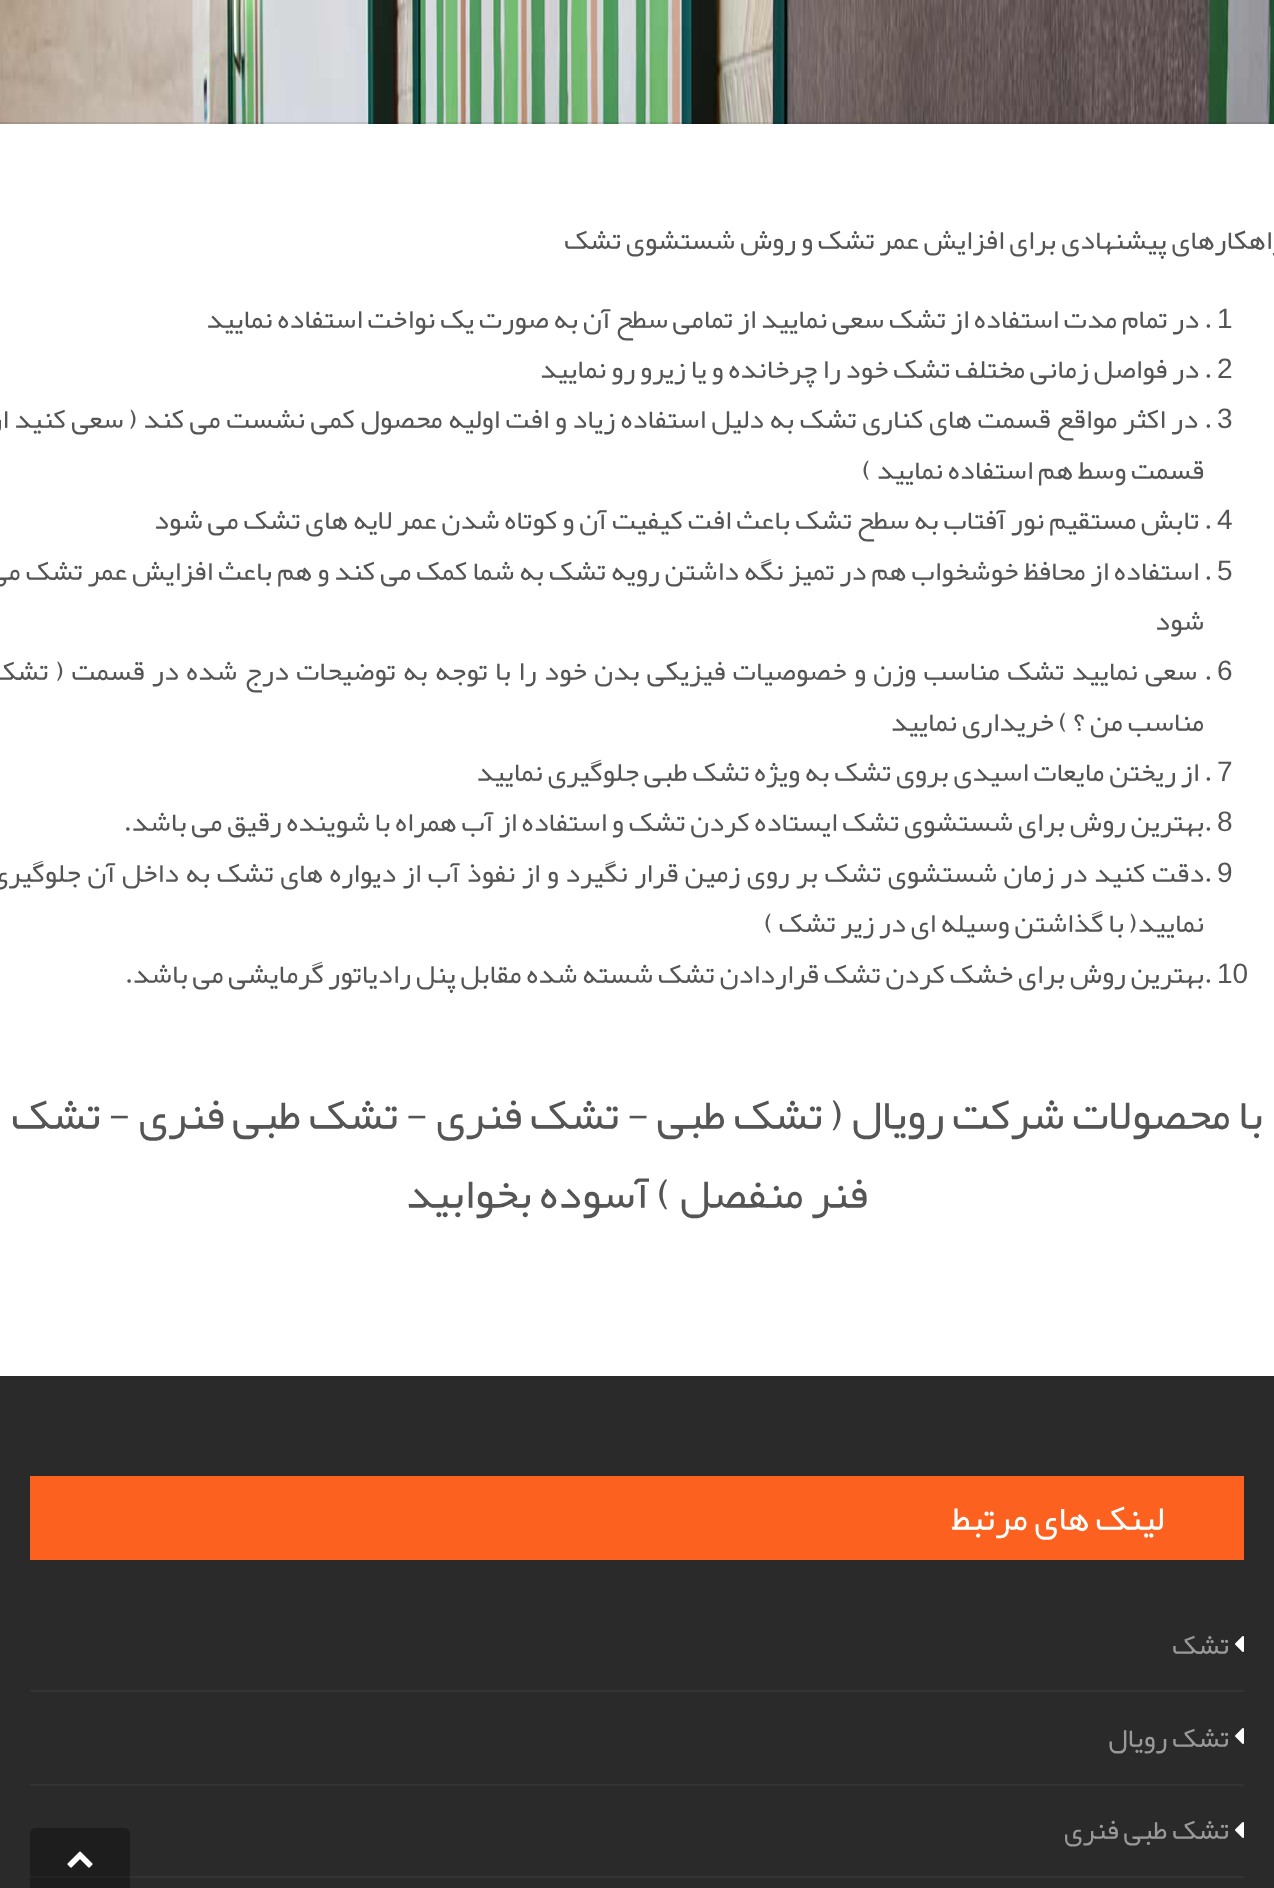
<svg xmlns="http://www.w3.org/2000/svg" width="1274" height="1888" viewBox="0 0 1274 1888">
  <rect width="100%" height="100%" fill="#fff"/>
  <image x="0" y="0" width="1274" height="124" href="img/1.png"/>
  <path d="M0 122h1274v2H0z" fill="#0000001a"/>
  <path d="M0 1376h1274v512H0z" fill="#2a2a2a"/>
  <path d="M30 1476h1214v84H30z" fill="#fc611f"/>
  <path d="M30 1690h1214v2H30z" fill="#333"/>
  <image x="1235" y="1636" width="9" height="16" href="img/2.png"/>
  <path d="M30 1784h1214v2H30z" fill="#333"/>
  <image x="1235" y="1728" width="9" height="16" href="img/2.png"/>
  <path d="M30 1876h1214v2H30z" fill="#333"/>
  <image x="1235" y="1822" width="9" height="16" href="img/2.png"/>
  <path d="M36 1828H124C127.5 1828 130 1830.5 130 1834V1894H30V1834C30 1830.5 32.5 1828 36 1828Z" fill="#0000004d"/>
  <image x="67" y="1851" width="26" height="17" href="img/3.png"/>
  <text x="1284" y="249" font-family="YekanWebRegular" font-size="28" direction="rtl" fill="#555">راهکارهای پیشنهادی برای افزایش عمر تشک و روش شستشوی تشک</text>
  <text x="1217" y="328" font-family="Liberation Sans" font-size="28" fill="#555">1</text>
  <text x="1204" y="328" font-family="YekanWebRegular" font-size="28" fill="#555">.</text>
  <text x="1199" y="328" font-family="YekanWebRegular" font-size="28" direction="rtl" fill="#555">در تمام مدت استفاده از تشک سعی نمایید از تمامی سطح آن به صورت یک نواخت استفاده نمایید</text>
  <text x="1217" y="378" font-family="Liberation Sans" font-size="28" fill="#555">2</text>
  <text x="1204" y="378" font-family="YekanWebRegular" font-size="28" fill="#555">.</text>
  <text x="1199" y="378" font-family="YekanWebRegular" font-size="28" direction="rtl" fill="#555">در فواصل زمانی مختلف تشک خود را چرخانده و یا زیرو رو نمایید</text>
  <text x="1217" y="428" font-family="Liberation Sans" font-size="28" fill="#555">3</text>
  <text x="1204" y="428" font-family="YekanWebRegular" font-size="28" fill="#555">.</text>
  <g font-family="YekanWebRegular" font-size="28" direction="rtl" fill="#555">
    <text x="1198" y="428" word-spacing="0.75">در اکثر مواقع قسمت های کناری تشک به دلیل استفاده زیاد و افت اولیه محصول کمی نشست می کند ( سعی کنید از</text>
    <text x="1204" y="479">قسمت وسط هم استفاده نمایید )</text>
  </g>
  <text x="1217" y="529" font-family="Liberation Sans" font-size="28" fill="#555">4</text>
  <text x="1204" y="529" font-family="YekanWebRegular" font-size="28" fill="#555">.</text>
  <text x="1199" y="529" font-family="YekanWebRegular" font-size="28" direction="rtl" fill="#555">تابش مستقیم نور آفتاب به سطح تشک باعث افت کیفیت آن و کوتاه شدن عمر لایه های تشک می شود</text>
  <text x="1217" y="580" font-family="Liberation Sans" font-size="28" fill="#555">5</text>
  <text x="1204" y="580" font-family="YekanWebRegular" font-size="28" fill="#555">.</text>
  <g font-family="YekanWebRegular" font-size="28" direction="rtl" fill="#555">
    <text x="1199" y="580" word-spacing="0.25">استفاده از محافظ خوشخواب هم در تمیز نگه داشتن رویه تشک به شما کمک می کند و هم باعث افزایش عمر تشک می</text>
    <text x="1204" y="630">شود</text>
  </g>
  <text x="1217" y="680" font-family="Liberation Sans" font-size="28" fill="#555">6</text>
  <text x="1204" y="680" font-family="YekanWebRegular" font-size="28" fill="#555">.</text>
  <g font-family="YekanWebRegular" font-size="28" direction="rtl" fill="#555">
    <text x="1197" y="680" word-spacing="2.5">سعی نمایید تشک مناسب وزن و خصوصیات فیزیکی بدن خود را با توجه به توضیحات درج شده در قسمت ( تشک</text>
    <text x="1204" y="731">مناسب من ؟ ) خریداری نمایید</text>
  </g>
  <text x="1217" y="781" font-family="Liberation Sans" font-size="28" fill="#555">7</text>
  <text x="1204" y="781" font-family="YekanWebRegular" font-size="28" fill="#555">.</text>
  <text x="1199" y="781" font-family="YekanWebRegular" font-size="28" direction="rtl" fill="#555">از ریختن مایعات اسیدی بروی تشک به ویژه تشک طبی جلوگیری نمایید</text>
  <text x="1217" y="831" font-family="Liberation Sans" font-size="28" fill="#555">8</text>
  <text x="1204" y="831" font-family="YekanWebRegular" font-size="28" fill="#555">.</text>
  <text x="1204" y="831" font-family="YekanWebRegular" font-size="28" direction="rtl" fill="#555">بهترین روش برای شستشوی تشک ایستاده کردن تشک و استفاده از آب همراه با شوینده رقیق می باشد.</text>
  <text x="1217" y="882" font-family="Liberation Sans" font-size="28" fill="#555">9</text>
  <text x="1204" y="882" font-family="YekanWebRegular" font-size="28" fill="#555">.</text>
  <g font-family="YekanWebRegular" font-size="28" direction="rtl" fill="#555">
    <text x="1204" y="882" word-spacing="1.7">دقت کنید در زمان شستشوی تشک بر روی زمین قرار نگیرد و از نفوذ آب از دیواره های تشک به داخل آن جلوگیری</text>
    <text x="1204" y="932">نمایید( با گذاشتن وسیله ای در زیر تشک )</text>
  </g>
  <text x="1217" y="983" font-family="Liberation Sans" font-size="28" fill="#555">10</text>
  <text x="1204" y="983" font-family="YekanWebRegular" font-size="28" fill="#555">.</text>
  <text x="1204" y="983" font-family="YekanWebRegular" font-size="28" direction="rtl" fill="#555">بهترین روش برای خشک کردن تشک قراردادن تشک شسته شده مقابل پنل رادیاتور گرمایشی می باشد.</text>
  <g font-family="YekanWebRegular" font-size="44" direction="rtl" fill="#555">
    <text x="1263" y="1129">با محصولات شرکت رویال ( تشک طبی - تشک فنری - تشک طبی فنری - تشک</text>
    <text x="868" y="1208">فنر منفصل ) آسوده بخوابید</text>
  </g>
  <text x="1164" y="1530" font-family="YekanWebRegular" font-size="36" direction="rtl" fill="#fff">لینک های مرتبط</text>
  <g font-family="YekanWebRegular" font-size="28" direction="rtl" fill="#999">
    <text x="1229" y="1654">تشک</text>
    <text x="1229" y="1747">تشک رویال</text>
    <text x="1229" y="1839">تشک طبی فنری</text>
  </g>
</svg>
